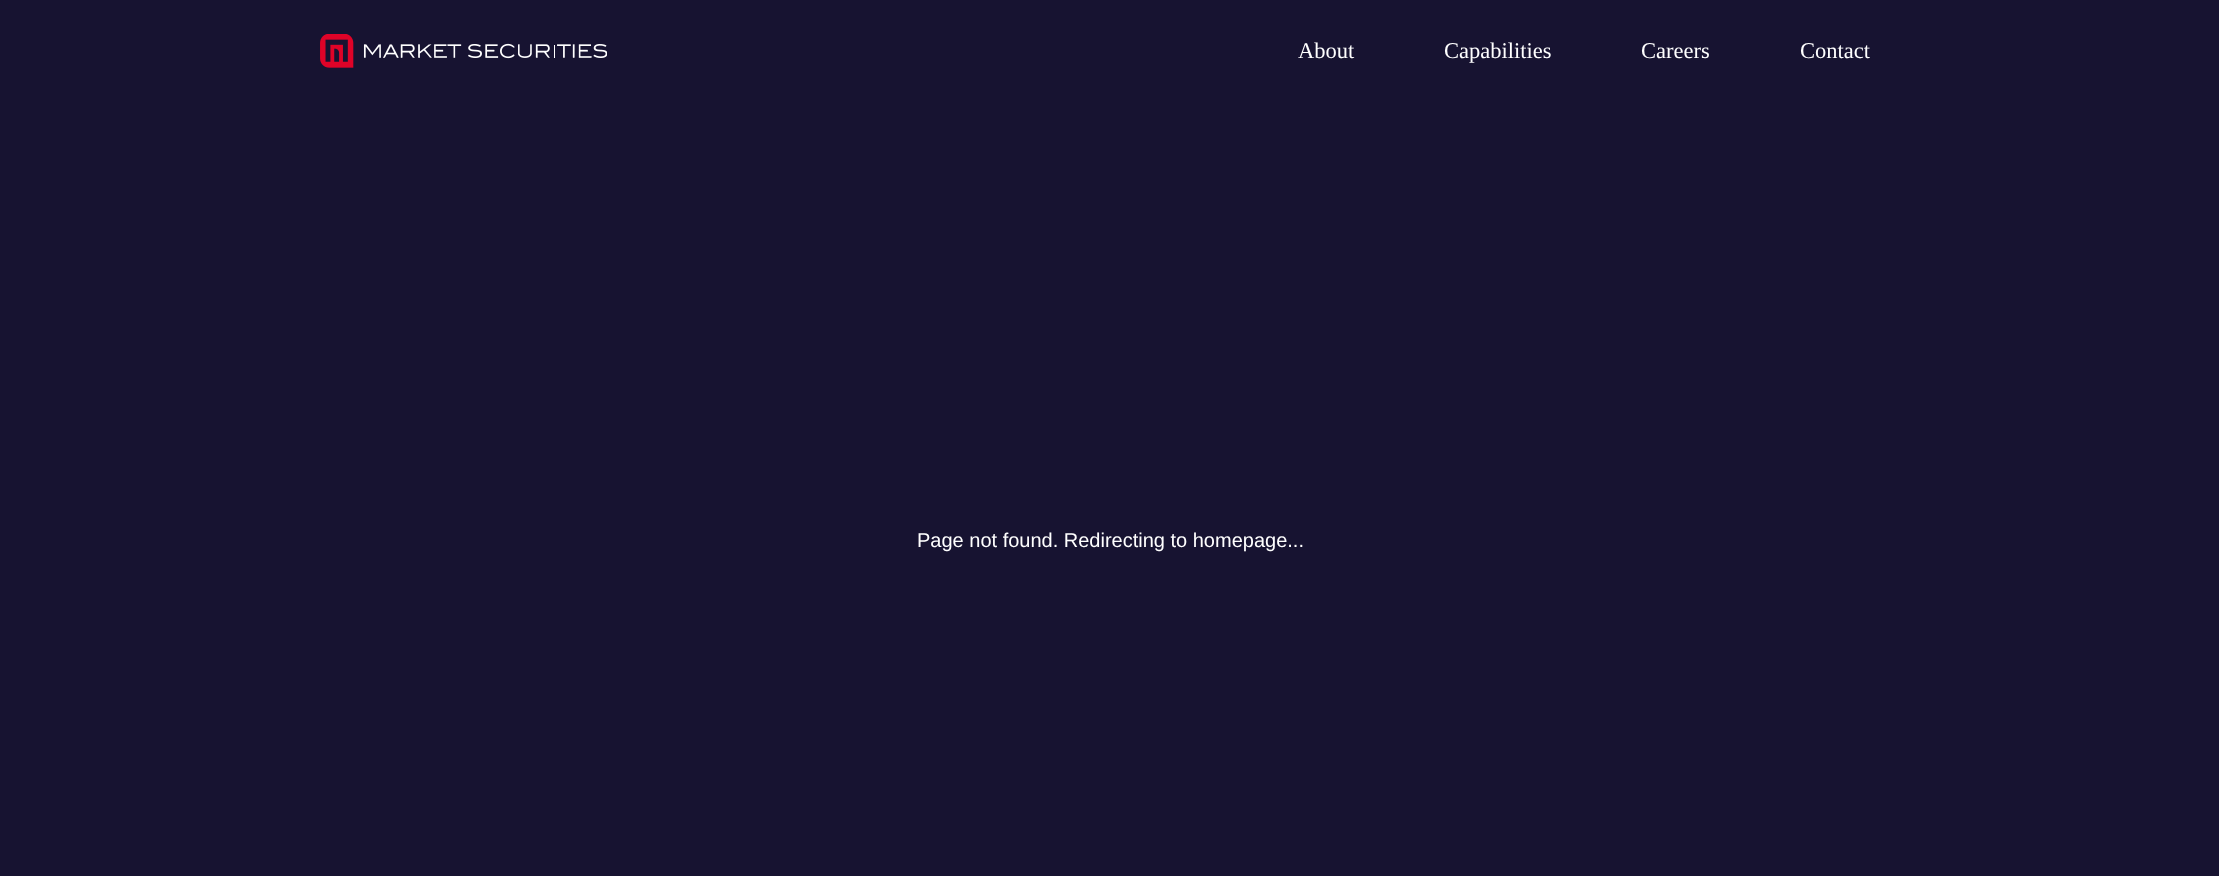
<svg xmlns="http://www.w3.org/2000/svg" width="2219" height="876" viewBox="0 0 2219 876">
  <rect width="100%" height="100%" fill="#171331"/>
  <image x="320" y="34" width="287" height="34" href="img/1.png"/>
  <g font-family="Liberation Serif" font-size="22.5" fill="#fff">
    <text x="1298" y="58">About</text>
    <text x="1444" y="58">Capabilities</text>
    <text x="1641" y="58">Careers</text>
    <text x="1800" y="58">Contact</text>
  </g>
  <text x="917" y="547" font-family="Liberation Sans" font-size="20" fill="#fff">Page not found. Redirecting to homepage...</text>
</svg>
